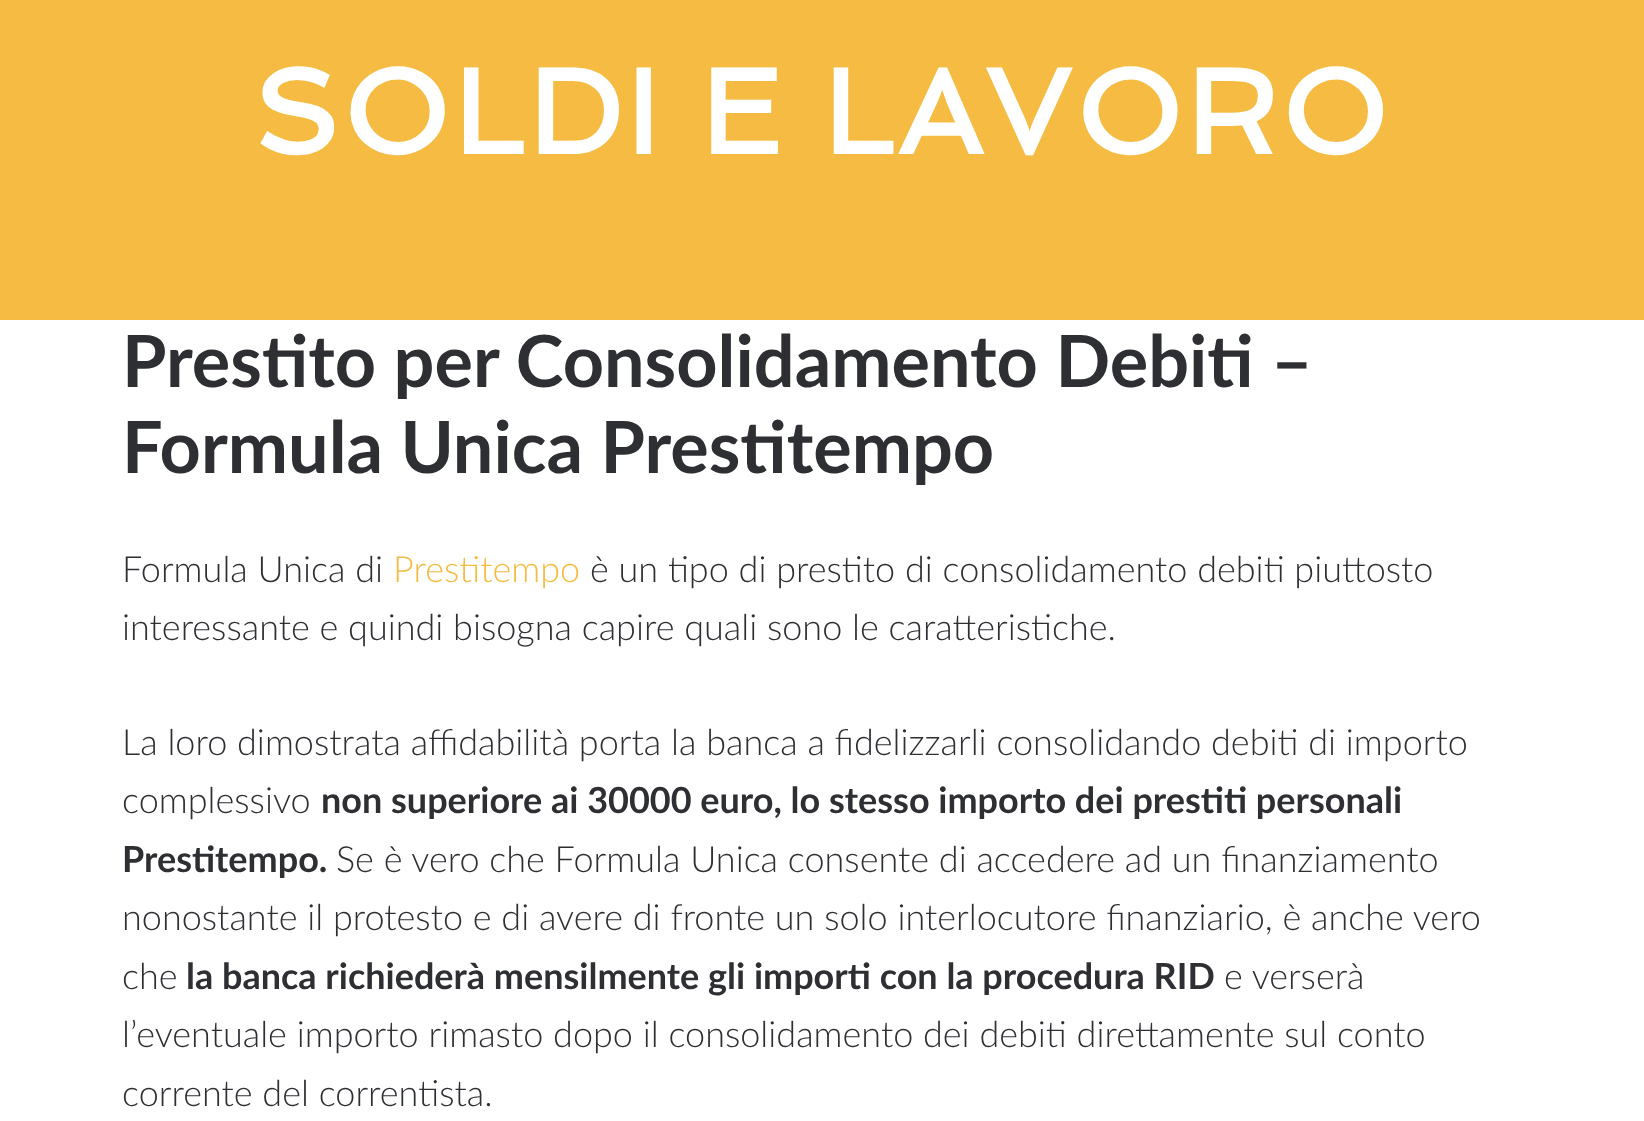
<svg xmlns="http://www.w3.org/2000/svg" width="1644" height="1121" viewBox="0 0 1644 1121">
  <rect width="100%" height="100%" fill="#fff"/>
  <path d="M0 0h1644v320H0z" fill="#f6bb42"/>
  <text x="253" y="154" font-family="Spinnaker" font-size="120" font-weight="bold" letter-spacing="4" fill="#fff">SOLDI E LAVORO</text>
  <g font-family="Lato" font-size="72" font-weight="bold" fill="#2e2f33">
    <text x="122" y="387">Prestito per Consolidamento Debiti –</text>
    <text x="122" y="473">Formula Unica Prestitempo</text>
  </g>
  <text x="122" y="582" font-family="Lato" font-size="36" font-weight="300" fill="#2e2f33">Formula Unica di</text>
  <text x="393" y="582" font-family="Lato" font-size="36" font-weight="300" fill="#f6bb42">Prestitempo</text>
  <g font-family="Lato" font-size="36" font-weight="300" fill="#2e2f33">
    <text x="590" y="582">è un tipo di prestito di consolidamento debiti piuttosto</text>
    <text x="122" y="640">interessante e quindi bisogna capire quali sono le caratteristiche.</text>
    <text x="122" y="755">La loro dimostrata affidabilità porta la banca a fidelizzarli consolidando debiti di importo</text>
    <text x="122" y="813">complessivo</text>
  </g>
  <g font-family="Lato" font-size="36" font-weight="bold" fill="#2e2f33">
    <text x="321" y="813">non superiore ai 30000 euro, lo stesso importo dei prestiti personali</text>
    <text x="122" y="872">Prestitempo.</text>
  </g>
  <g font-family="Lato" font-size="36" font-weight="300" fill="#2e2f33">
    <text x="336" y="872">Se è vero che Formula Unica consente di accedere ad un finanziamento</text>
    <text x="122" y="930">nonostante il protesto e di avere di fronte un solo interlocutore finanziario, è anche vero</text>
    <text x="122" y="989">che</text>
  </g>
  <text x="186" y="989" font-family="Lato" font-size="36" font-weight="bold" fill="#2e2f33">la banca richiederà mensilmente gli importi con la procedura RID</text>
  <g font-family="Lato" font-size="36" font-weight="300" fill="#2e2f33">
    <text x="1224" y="989">e verserà</text>
    <text x="122" y="1047">l’eventuale importo rimasto dopo il consolidamento dei debiti direttamente sul conto</text>
    <text x="122" y="1106">corrente del correntista.</text>
  </g>
</svg>
